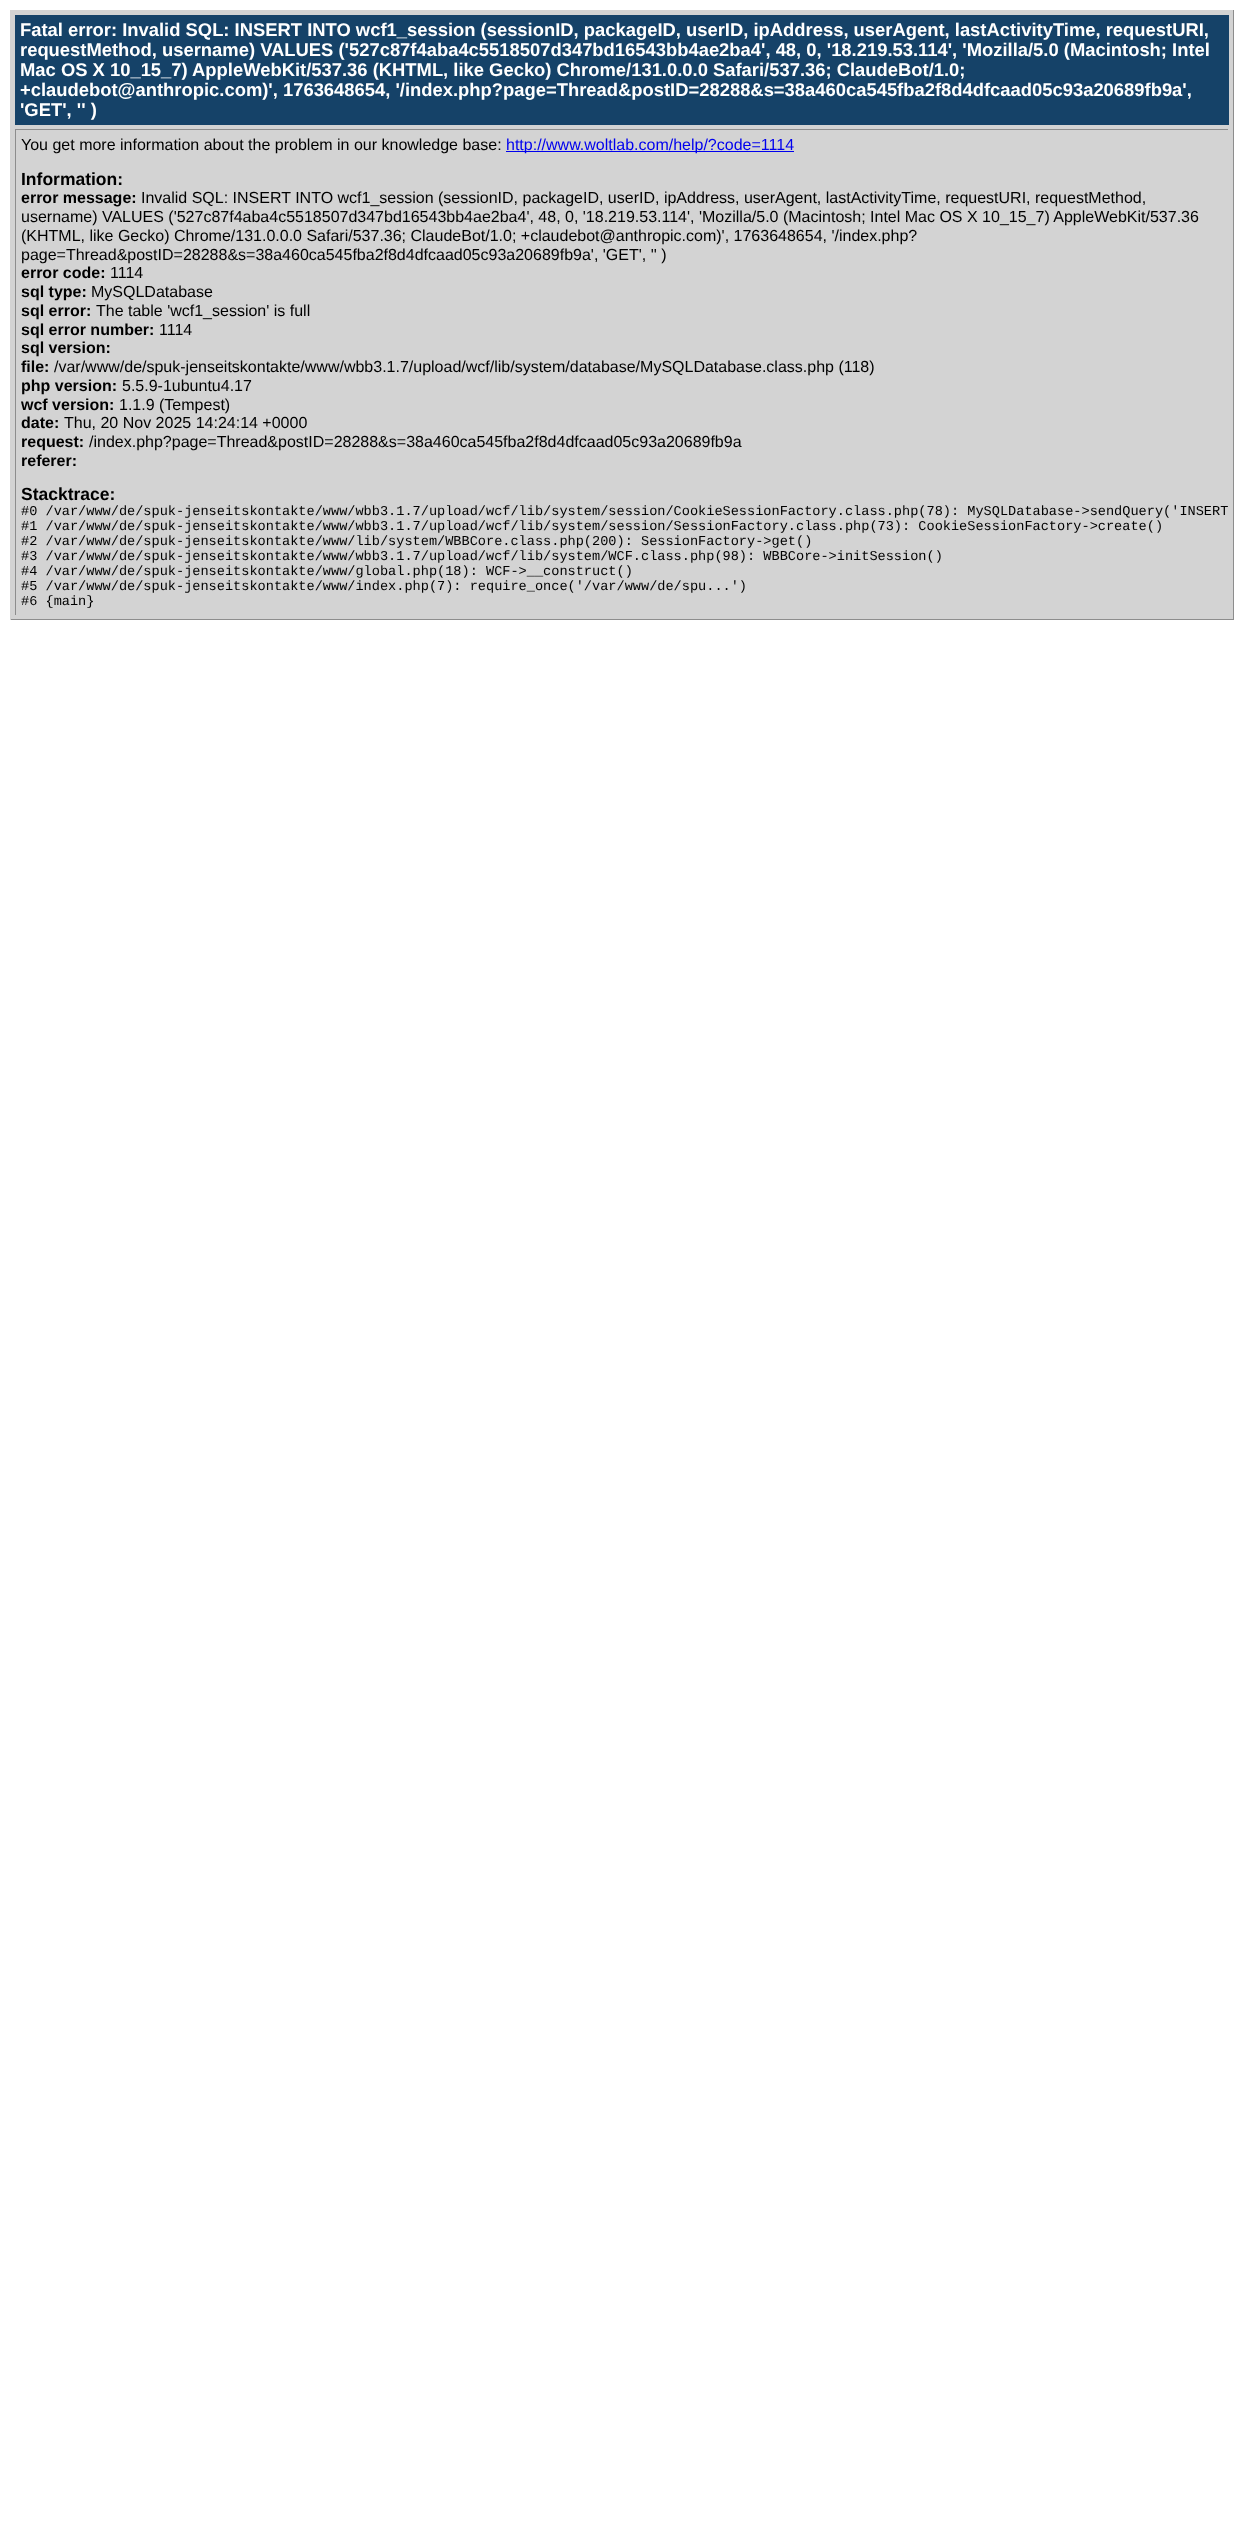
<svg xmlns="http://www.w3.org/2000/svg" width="1243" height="2537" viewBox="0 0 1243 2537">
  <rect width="100%" height="100%" fill="#fff"/>
  <path d="M11 10h1222v609H11z" fill="#d3d3d3"/>
  <path d="M1233 10h1v610H1233z" fill="#8d8d8d"/>
  <path d="M10 619h1224v1H10z" fill="#8d8d8d"/>
  <path d="M10 10h1v610H10z" fill="#d3d3d3"/>
  <path d="M15 15h1214v110H15z" fill="#154268"/>
  <path d="M15 129h1214v1H15z" fill="#8d8d8d"/>
  <path d="M1228 129h1v1H1228z" fill="#d3d3d3"/>
  <path d="M15 129h1v486H15z" fill="#8d8d8d"/>
  <path d="M506 151h288v1H506z" fill="#00e"/>
  <g font-family="Liberation Sans" font-size="18.4" font-weight="bold" fill="#fff">
    <text x="20" y="36">Fatal error: Invalid SQL: INSERT INTO wcf1_session (sessionID, packageID, userID, ipAddress, userAgent, lastActivityTime, requestURI,</text>
    <text x="20" y="56">requestMethod, username) VALUES ('527c87f4aba4c5518507d347bd16543bb4ae2ba4', 48, 0, '18.219.53.114', 'Mozilla/5.0 (Macintosh; Intel</text>
    <text x="20" y="76">Mac OS X 10_15_7) AppleWebKit/537.36 (KHTML, like Gecko) Chrome/131.0.0.0 Safari/537.36; ClaudeBot/1.0;</text>
    <text x="20" y="96">+claudebot@anthropic.com)', 1763648654, '/index.php?page=Thread&amp;postID=28288&amp;s=38a460ca545fba2f8d4dfcaad05c93a20689fb9a',</text>
    <text x="20" y="116">'GET', '' )</text>
  </g>
  <text x="21" y="150" font-family="Liberation Sans" font-size="16" fill="#000">You get more information about the problem in our knowledge base:</text>
  <text x="506" y="150" font-family="Liberation Sans" font-size="16" fill="#00e">http://www.woltlab.com/help/?code=1114</text>
  <text x="21" y="185" font-family="Liberation Sans" font-size="17.5" font-weight="bold" fill="#000">Information:</text>
  <text x="21" y="203" font-family="Liberation Sans" font-size="16" font-weight="bold" fill="#000">error message:</text>
  <g font-family="Liberation Sans" font-size="16" fill="#000">
    <text x="141" y="203">Invalid SQL: INSERT INTO wcf1_session (sessionID, packageID, userID, ipAddress, userAgent, lastActivityTime, requestURI, requestMethod,</text>
    <text x="21" y="222">username) VALUES ('527c87f4aba4c5518507d347bd16543bb4ae2ba4', 48, 0, '18.219.53.114', 'Mozilla/5.0 (Macintosh; Intel Mac OS X 10_15_7) AppleWebKit/537.36</text>
    <text x="21" y="241">(KHTML, like Gecko) Chrome/131.0.0.0 Safari/537.36; ClaudeBot/1.0; +claudebot@anthropic.com)', 1763648654, '/index.php?</text>
    <text x="21" y="260">page=Thread&amp;postID=28288&amp;s=38a460ca545fba2f8d4dfcaad05c93a20689fb9a', 'GET', '' )</text>
  </g>
  <text x="21" y="278" font-family="Liberation Sans" font-size="16" font-weight="bold" fill="#000">error code:</text>
  <text x="110" y="278" font-family="Liberation Sans" font-size="16" fill="#000">1114</text>
  <text x="21" y="297" font-family="Liberation Sans" font-size="16" font-weight="bold" fill="#000">sql type:</text>
  <text x="91" y="297" font-family="Liberation Sans" font-size="16" fill="#000">MySQLDatabase</text>
  <text x="21" y="316" font-family="Liberation Sans" font-size="16" font-weight="bold" fill="#000">sql error:</text>
  <text x="96" y="316" font-family="Liberation Sans" font-size="16" fill="#000">The table 'wcf1_session' is full</text>
  <text x="21" y="335" font-family="Liberation Sans" font-size="16" font-weight="bold" fill="#000">sql error number:</text>
  <text x="159" y="335" font-family="Liberation Sans" font-size="16" fill="#000">1114</text>
  <g font-family="Liberation Sans" font-size="16" font-weight="bold" fill="#000">
    <text x="21" y="353">sql version:</text>
    <text x="21" y="372">file:</text>
  </g>
  <text x="54" y="372" font-family="Liberation Sans" font-size="16" fill="#000">/var/www/de/spuk-jenseitskontakte/www/wbb3.1.7/upload/wcf/lib/system/database/MySQLDatabase.class.php (118)</text>
  <text x="21" y="391" font-family="Liberation Sans" font-size="16" font-weight="bold" fill="#000">php version:</text>
  <text x="122" y="391" font-family="Liberation Sans" font-size="16" fill="#000">5.5.9-1ubuntu4.17</text>
  <text x="21" y="410" font-family="Liberation Sans" font-size="16" font-weight="bold" fill="#000">wcf version:</text>
  <text x="119" y="410" font-family="Liberation Sans" font-size="16" fill="#000">1.1.9 (Tempest)</text>
  <text x="21" y="428" font-family="Liberation Sans" font-size="16" font-weight="bold" fill="#000">date:</text>
  <text x="64" y="428" font-family="Liberation Sans" font-size="16" fill="#000">Thu, 20 Nov 2025 14:24:14 +0000</text>
  <text x="21" y="447" font-family="Liberation Sans" font-size="16" font-weight="bold" fill="#000">request:</text>
  <text x="89" y="447" font-family="Liberation Sans" font-size="16" fill="#000">/index.php?page=Thread&amp;postID=28288&amp;s=38a460ca545fba2f8d4dfcaad05c93a20689fb9a</text>
  <text x="21" y="466" font-family="Liberation Sans" font-size="16" font-weight="bold" fill="#000">referer:</text>
  <text x="21" y="500" font-family="Liberation Sans" font-size="17.5" font-weight="bold" fill="#000">Stacktrace:</text>
  <g font-family="Liberation Mono" font-size="13.6" fill="#000">
    <text x="21" y="515">#0 /var/www/de/spuk-jenseitskontakte/www/wbb3.1.7/upload/wcf/lib/system/session/CookieSessionFactory.class.php(78): MySQLDatabase-&gt;sendQuery('INSERT</text>
    <text x="21" y="530">#1 /var/www/de/spuk-jenseitskontakte/www/wbb3.1.7/upload/wcf/lib/system/session/SessionFactory.class.php(73): CookieSessionFactory-&gt;create()</text>
    <text x="21" y="545">#2 /var/www/de/spuk-jenseitskontakte/www/lib/system/WBBCore.class.php(200): SessionFactory-&gt;get()</text>
    <text x="21" y="560">#3 /var/www/de/spuk-jenseitskontakte/www/wbb3.1.7/upload/wcf/lib/system/WCF.class.php(98): WBBCore-&gt;initSession()</text>
    <text x="21" y="575">#4 /var/www/de/spuk-jenseitskontakte/www/global.php(18): WCF-&gt;__construct()</text>
    <text x="21" y="590">#5 /var/www/de/spuk-jenseitskontakte/www/index.php(7): require_once('/var/www/de/spu...')</text>
    <text x="21" y="605">#6 {main}</text>
  </g>
</svg>
